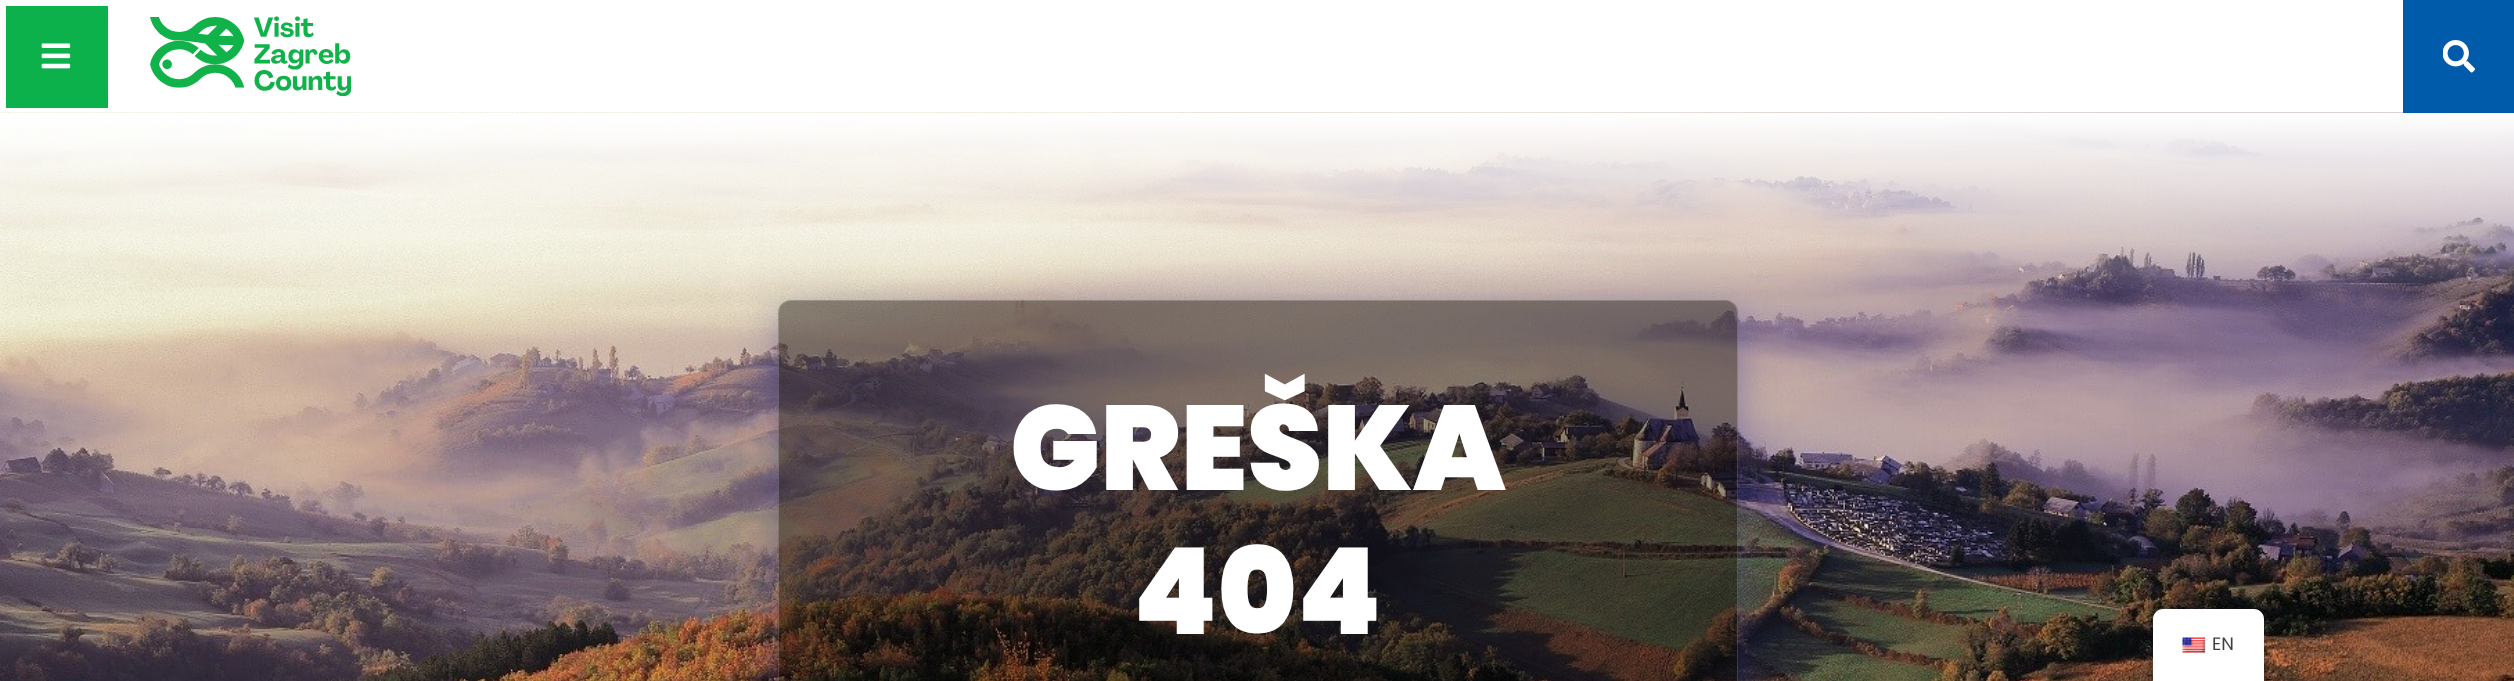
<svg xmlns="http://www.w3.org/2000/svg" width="2514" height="681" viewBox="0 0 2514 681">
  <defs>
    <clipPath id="clip1"><path d="M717 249H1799V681H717ZM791 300H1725C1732 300 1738 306 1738 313V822C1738 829 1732 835 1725 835H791C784 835 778 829 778 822V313C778 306 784 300 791 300Z" clip-rule="evenodd"/></clipPath>
  </defs>
  <rect width="100%" height="100%" fill="#fff"/>
  <path d="M6 6h102v102H6z" fill="#0db14b"/>
  <image x="41" y="43" width="30" height="26" href="img/1.png"/>
  <image x="150" y="16" width="201" height="80" href="img/2.png"/>
  <image x="0" y="112" width="2514" height="569" href="img/4.png"/>
  <path d="M2403 0h111v113H2403z" fill="#005baa"/>
  <image x="2443" y="40" width="32" height="33" href="img/3.png"/>
  <g clip-path="url(#clip1)">
    <rect x="778" y="310" width="960" height="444" rx="13" fill="#1f26875e" filter="blur(20px)"/>
  </g>
  <rect x="778" y="300" width="960" height="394" rx="13" fill="#00000066"/>
  <rect x="778.5" y="300.5" width="959" height="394" rx="12.5" fill="none" stroke="#ffffff2e"/>
  <rect x="2153" y="609" width="111" height="72" rx="10" fill="#00000040" filter="blur(5px)"/>
  <path d="M2163 609H2254C2259.5 609 2264 613.5 2264 619V681H2153V619C2153 613.5 2157.5 609 2163 609Z" fill="#fff"/>
  <image x="2182" y="637" width="24" height="16" href="img/5.png"/>
  <g font-family="Poppins" font-size="120" font-weight="900" fill="#fff">
    <text x="1010" y="490">GREŠKA</text>
    <text x="1133" y="634">404</text>
  </g>
  <text x="2212" y="650" font-family="Poppins" font-size="18" fill="#404040">EN</text>
</svg>
